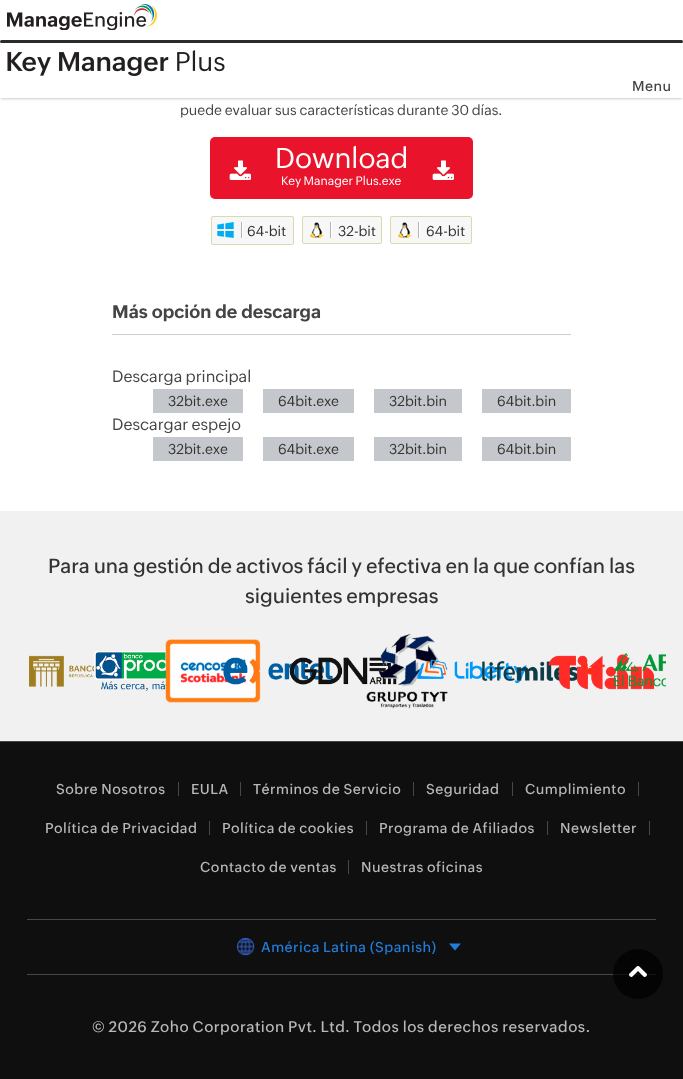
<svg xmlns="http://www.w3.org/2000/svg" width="683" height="1079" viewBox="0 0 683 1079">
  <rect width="100%" height="100%" fill="#fff"/>
  <image x="7" y="4" width="150" height="26" href="img/1.png"/>
  <path d="M1 43h681v56H1z" fill="#ccc" filter="blur(1px)"/>
  <path d="M0 41h683v57H0z" fill="#fff"/>
  <rect y="40" width="683" height="3" rx="1.5" fill="#2b2b2b"/>
  <image x="7" y="50" width="218" height="26" href="img/2.png"/>
  <rect x="210" y="137" width="263" height="62" rx="5" fill="#e9142b"/>
  <image x="229" y="160" width="22" height="20" href="img/3.png"/>
  <image x="432" y="160" width="22" height="20" href="img/3.png"/>
  <rect x="211.5" y="216.5" width="82" height="28" rx="1.5" fill="#f7f7f7" stroke="#dadaad"/>
  <image x="217" y="222" width="26" height="16" href="img/4.png"/>
  <rect x="302.5" y="216.5" width="79" height="27" rx="1.5" fill="#f7f7f7" stroke="#dadaad"/>
  <image x="310" y="222" width="22" height="16" href="img/5.png"/>
  <rect x="390.5" y="216.5" width="81" height="27" rx="1.5" fill="#f7f7f7" stroke="#dadaad"/>
  <image x="398" y="222" width="22" height="16" href="img/5.png"/>
  <path d="M112 334h459v1H112z" fill="#ccc"/>
  <path d="M153 389h90v24H153z" fill="#c4c8cc"/>
  <path d="M263 389h91v24H263z" fill="#c4c8cc"/>
  <path d="M374 389h88v24H374z" fill="#c4c8cc"/>
  <path d="M482 389h89v24H482z" fill="#c4c8cc"/>
  <path d="M153 437h90v24H153z" fill="#c4c8cc"/>
  <path d="M263 437h91v24H263z" fill="#c4c8cc"/>
  <path d="M374 437h88v24H374z" fill="#c4c8cc"/>
  <path d="M482 437h89v24H482z" fill="#c4c8cc"/>
  <path d="M0 511h683v230H0z" fill="#f1f1f1"/>
  <image x="29" y="655" width="93" height="32" href="img/10.png"/>
  <image x="94" y="651" width="73" height="40" href="img/6.png"/>
  <image x="165" y="639" width="96" height="64" href="img/7.png"/>
  <image x="223" y="657" width="110" height="28" href="img/11.png"/>
  <image x="289" y="657" width="108" height="28" href="img/12.png"/>
  <image x="366" y="633" width="82" height="76" href="img/8.png"/>
  <image x="417" y="659" width="110" height="25" href="img/13.png"/>
  <image x="482" y="661" width="110" height="20" href="img/14.png"/>
  <image x="548" y="654" width="107" height="36" href="img/15.png"/>
  <image x="613" y="653" width="53" height="34" href="img/9.png"/>
  <path d="M0 741h683v1H0z" fill="#444"/>
  <path d="M0 742h683v337H0z" fill="#0f0f0f"/>
  <path d="M178 782h1v14H178z" fill="#47484a"/>
  <path d="M240 782h1v14H240z" fill="#47484a"/>
  <path d="M413 782h1v14H413z" fill="#47484a"/>
  <path d="M512 782h1v14H512z" fill="#47484a"/>
  <path d="M638 782h1v14H638z" fill="#47484a"/>
  <path d="M209 821h1v14H209z" fill="#47484a"/>
  <path d="M366 821h1v14H366z" fill="#47484a"/>
  <path d="M547 821h1v14H547z" fill="#47484a"/>
  <path d="M649 821h1v14H649z" fill="#47484a"/>
  <path d="M348 860h1v14H348z" fill="#47484a"/>
  <path d="M27 919h629v1H27z" fill="#47484a"/>
  <path d="M27 974h629v1H27z" fill="#47484a"/>
  <image x="237" y="938" width="18" height="18" href="img/16.png"/>
  <path d="M449 943.5H461L455 950.5Z" fill="#207ddb"/>
  <circle cx="638" cy="974" r="25" fill="#000000b3"/>
  <image x="629" y="966" width="18" height="11" href="img/17.png"/>
  <text x="632" y="91" font-family="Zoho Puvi" font-size="14" font-weight="500" letter-spacing="0.5" fill="#444">Menu</text>
  <text x="180" y="115" font-family="Zoho Puvi" font-size="14" fill="#444">puede evaluar sus características durante 30 días.</text>
  <text x="275" y="168" font-family="Zoho Puvi" font-size="28" fill="#fff">Download</text>
  <text x="281" y="185" font-family="Zoho Puvi" font-size="12" fill="#fff">Key Manager Plus.exe</text>
  <g font-family="Zoho Puvi" font-size="14" fill="#333">
    <text x="247" y="236">64-bit</text>
    <text x="338" y="236">32-bit</text>
    <text x="426" y="236">64-bit</text>
  </g>
  <text x="112" y="318" font-family="Zoho Puvi" font-size="18" font-weight="bold" fill="#444">Más opción de descarga</text>
  <text x="112" y="382" font-family="Zoho Puvi" font-size="16" fill="#444">Descarga principal</text>
  <g font-family="Zoho Puvi" font-size="14" fill="#333">
    <text x="168" y="406">32bit.exe</text>
    <text x="278" y="406">64bit.exe</text>
    <text x="389" y="406">32bit.bin</text>
    <text x="497" y="406">64bit.bin</text>
  </g>
  <text x="112" y="430" font-family="Zoho Puvi" font-size="16" fill="#444">Descargar espejo</text>
  <g font-family="Zoho Puvi" font-size="14" fill="#333">
    <text x="168" y="454">32bit.exe</text>
    <text x="278" y="454">64bit.exe</text>
    <text x="389" y="454">32bit.bin</text>
    <text x="497" y="454">64bit.bin</text>
  </g>
  <g font-family="Zoho Puvi" font-size="20" font-weight="500" fill="#333">
    <text x="48" y="573">Para una gestión de activos fácil y efectiva en la que confían las</text>
    <text x="245" y="603">siguientes empresas</text>
  </g>
  <g font-family="Zoho Puvi" font-size="14" font-weight="500" letter-spacing="0.5" fill="#b8b8b8">
    <text x="56" y="794">Sobre Nosotros</text>
    <text x="191" y="794">EULA</text>
    <text x="253" y="794">Términos de Servicio</text>
    <text x="426" y="794">Seguridad</text>
    <text x="525" y="794">Cumplimiento</text>
    <text x="45" y="833">Política de Privacidad</text>
    <text x="222" y="833">Política de cookies</text>
    <text x="379" y="833">Programa de Afiliados</text>
    <text x="560" y="833">Newsletter</text>
    <text x="200" y="872">Contacto de ventas</text>
    <text x="361" y="872">Nuestras oficinas</text>
  </g>
  <text x="261" y="952" font-family="Zoho Puvi" font-size="14" font-weight="500" letter-spacing="0.5" fill="#207ddb">América Latina (Spanish)</text>
  <text x="92" y="1032" font-family="Zoho Puvi" font-size="15" font-weight="500" letter-spacing="0.5" fill="#b8b8b8">© 2026 Zoho Corporation Pvt. Ltd. Todos los derechos reservados.</text>
</svg>
